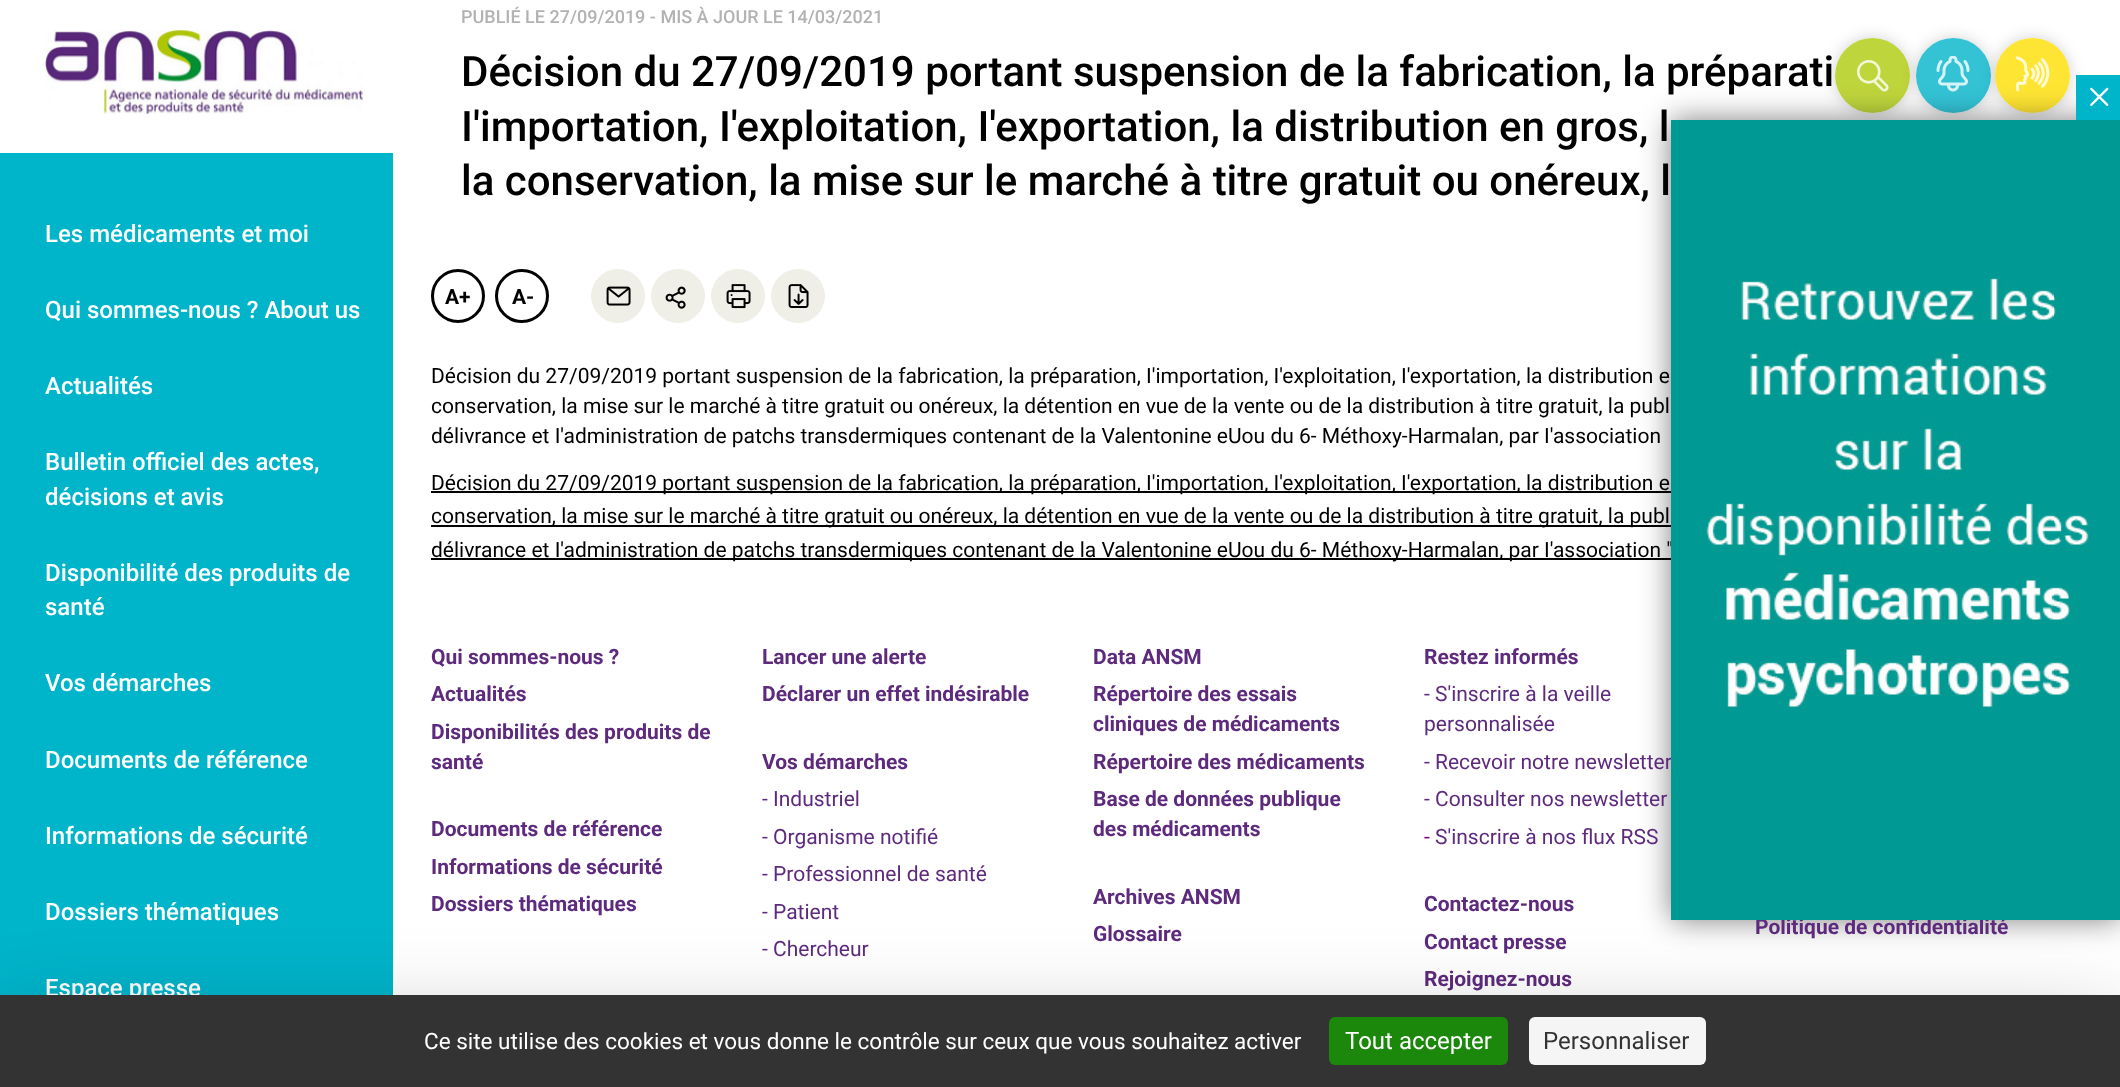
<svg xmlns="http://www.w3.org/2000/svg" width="2120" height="1087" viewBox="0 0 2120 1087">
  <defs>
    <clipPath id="clip1"><path d="M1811 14H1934V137H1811ZM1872.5 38C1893 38 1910 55 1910 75.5C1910 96 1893 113 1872.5 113C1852 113 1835 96 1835 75.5C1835 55 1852 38 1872.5 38Z" clip-rule="evenodd"/></clipPath>
    <clipPath id="clip2"><path d="M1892 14H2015V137H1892ZM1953.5 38C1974 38 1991 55 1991 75.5C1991 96 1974 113 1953.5 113C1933 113 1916 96 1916 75.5C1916 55 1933 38 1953.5 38Z" clip-rule="evenodd"/></clipPath>
    <clipPath id="clip3"><path d="M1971 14H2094V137H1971ZM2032.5 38C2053 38 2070 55 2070 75.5C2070 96 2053 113 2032.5 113C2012 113 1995 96 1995 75.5C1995 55 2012 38 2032.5 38Z" clip-rule="evenodd"/></clipPath>
  </defs>
  <rect width="100%" height="100%" fill="#fff"/>
  <circle cx="458" cy="296" r="25.5" fill="none" stroke="#000" stroke-width="3"/>
  <circle cx="522" cy="296" r="25.5" fill="none" stroke="#000" stroke-width="3"/>
  <circle cx="618" cy="296" r="27" fill="#efefe7"/>
  <image x="606" y="286" width="25" height="20" href="img/1.png"/>
  <circle cx="678" cy="296" r="27" fill="#efefe7"/>
  <image x="665" y="286" width="21" height="23" href="img/2.png"/>
  <circle cx="738" cy="296" r="27" fill="#efefe7"/>
  <image x="726" y="284" width="25" height="25" href="img/3.png"/>
  <circle cx="798" cy="296" r="27" fill="#efefe7"/>
  <image x="788" y="284" width="21" height="24" href="img/4.png"/>
  <path d="M431 491h1240v2H431z" fill="#000"/>
  <path d="M431 525h1240v2H431z" fill="#000"/>
  <path d="M431 558h1240v2H431z" fill="#000"/>
  <image x="45" y="30" width="318" height="84" href="img/5.png"/>
  <g clip-path="url(#clip1)">
    <rect x="1835" y="38" width="75" height="75" rx="37.5" fill="#0000002e" filter="blur(7.5px)"/>
  </g>
  <circle cx="1872.5" cy="75.5" r="37.5" fill="#afca0bcc"/>
  <image x="1857" y="60" width="32" height="32" href="img/6.png"/>
  <g clip-path="url(#clip2)">
    <rect x="1916" y="38" width="75" height="75" rx="37.5" fill="#0000002e" filter="blur(7.5px)"/>
  </g>
  <circle cx="1953.5" cy="75.5" r="37.5" fill="#00b4cacc"/>
  <image x="1936" y="56" width="34" height="36" href="img/7.png"/>
  <g clip-path="url(#clip3)">
    <rect x="1995" y="38" width="75" height="75" rx="37.5" fill="#0000002e" filter="blur(7.5px)"/>
  </g>
  <circle cx="2032.5" cy="75.5" r="37.5" fill="#ffde00cc"/>
  <image x="2015" y="56" width="35" height="36" href="img/8.png"/>
  <path d="M0 153h393v842H0z" fill="#00b4ca"/>
  <path d="M1671 120h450v800H1671z" fill="#00000080" filter="blur(15px)"/>
  <path d="M2076 75h44v45H2076z" fill="#00b4ca"/>
  <image x="2090" y="87" width="19" height="19" href="img/10.png"/>
  <text x="461" y="23" font-family="Roboto" font-size="18" font-weight="500" fill="#b3b2b2">PUBLIÉ LE 27/09/2019 - MIS À JOUR LE 14/03/2021</text>
  <g font-family="Roboto" font-size="42" font-weight="500" fill="#000">
    <text x="461" y="86">Décision du 27/09/2019 portant suspension de la fabrication, la préparati</text>
    <text x="461" y="141">I'importation, I'exploitation, I'exportation, la distribution en gros, l</text>
    <text x="461" y="195">la conservation, la mise sur le marché à titre gratuit ou onéreux, l</text>
  </g>
  <g font-family="Roboto" font-size="21" font-weight="bold" fill="#000">
    <text x="445" y="304">A+</text>
    <text x="512" y="304">A-</text>
  </g>
  <g font-family="Roboto" font-size="21" fill="#000">
    <text x="431" y="383">Décision du 27/09/2019 portant suspension de la fabrication, la préparation, I'importation, I'exploitation, I'exportation, la distribution e</text>
    <text x="431" y="413">conservation, la mise sur le marché à titre gratuit ou onéreux, la détention en vue de la vente ou de la distribution à titre gratuit, la publ</text>
    <text x="431" y="443">délivrance et I'administration de patchs transdermiques contenant de la Valentonine eUou du 6- Méthoxy-Harmalan, par I'association</text>
    <text x="431" y="490">Décision du 27/09/2019 portant suspension de la fabrication, la préparation, I'importation, I'exploitation, I'exportation, la distribution e</text>
    <text x="431" y="523">conservation, la mise sur le marché à titre gratuit ou onéreux, la détention en vue de la vente ou de la distribution à titre gratuit, la publ</text>
    <text x="431" y="557">délivrance et I'administration de patchs transdermiques contenant de la Valentonine eUou du 6- Méthoxy-Harmalan, par I'association "</text>
  </g>
  <g font-family="Roboto" font-size="21" font-weight="bold" fill="#5e2a7e">
    <text x="431" y="664">Qui sommes-nous ?</text>
    <text x="431" y="701">Actualités</text>
    <text x="431" y="739">Disponibilités des produits de</text>
    <text x="431" y="769">santé</text>
    <text x="431" y="836">Documents de référence</text>
    <text x="431" y="874">Informations de sécurité</text>
    <text x="431" y="911">Dossiers thématiques</text>
    <text x="762" y="664">Lancer une alerte</text>
    <text x="762" y="701">Déclarer un effet indésirable</text>
    <text x="762" y="769">Vos démarches</text>
  </g>
  <g font-family="Roboto" font-size="21" fill="#5e2a7e">
    <text x="762" y="806">- Industriel</text>
    <text x="762" y="844">- Organisme notifié</text>
    <text x="762" y="881">- Professionnel de santé</text>
    <text x="762" y="919">- Patient</text>
    <text x="762" y="956">- Chercheur</text>
  </g>
  <g font-family="Roboto" font-size="21" font-weight="bold" fill="#5e2a7e">
    <text x="1093" y="664">Data ANSM</text>
    <text x="1093" y="701">Répertoire des essais</text>
    <text x="1093" y="731">cliniques de médicaments</text>
    <text x="1093" y="769">Répertoire des médicaments</text>
    <text x="1093" y="806">Base de données publique</text>
    <text x="1093" y="836">des médicaments</text>
    <text x="1093" y="904">Archives ANSM</text>
    <text x="1093" y="941">Glossaire</text>
    <text x="1424" y="664">Restez informés</text>
  </g>
  <g font-family="Roboto" font-size="21" fill="#5e2a7e">
    <text x="1424" y="701">- S'inscrire à la veille</text>
    <text x="1424" y="731">personnalisée</text>
    <text x="1424" y="769">- Recevoir notre newsletter</text>
    <text x="1424" y="806">- Consulter nos newsletter</text>
  </g>
  <text x="1424" y="844" font-family="Roboto" font-size="21" fill="#800080">-</text>
  <text x="1435" y="844" font-family="Roboto" font-size="21" fill="#5e2a7e">S'inscrire à nos flux RSS</text>
  <g font-family="Roboto" font-size="21" font-weight="bold" fill="#5e2a7e">
    <text x="1424" y="911">Contactez-nous</text>
    <text x="1424" y="949">Contact presse</text>
    <text x="1424" y="986">Rejoignez-nous</text>
    <text x="1755" y="934">Politique de confidentialité</text>
  </g>
  <g font-family="Roboto" font-size="24" font-weight="500" fill="#fff">
    <text x="45" y="242">Les médicaments et moi</text>
    <text x="45" y="318">Qui sommes-nous ? About us</text>
    <text x="45" y="394">Actualités</text>
    <text x="45" y="470">Bulletin officiel des actes,</text>
    <text x="45" y="505">décisions et avis</text>
    <text x="45" y="581">Disponibilité des produits de</text>
    <text x="45" y="615">santé</text>
    <text x="45" y="691">Vos démarches</text>
    <text x="45" y="768">Documents de référence</text>
    <text x="45" y="844">Informations de sécurité</text>
    <text x="45" y="920">Dossiers thématiques</text>
    <text x="45" y="996">Espace presse</text>
  </g>
  <image x="1671" y="120" width="449" height="800" href="img/9.png"/>
  <path d="M0 1025h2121v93H0z" fill="#00000040" filter="blur(45px)"/>
  <path d="M0 995h2120v92H0z" fill="#333"/>
  <text x="424" y="1049" font-family="Roboto" font-size="22.5" fill="#fff">Ce site utilise des cookies et vous donne le contrôle sur ceux que vous souhaitez activer</text>
  <rect x="1329" y="1017" width="179" height="48" rx="6" fill="#1b870b"/>
  <text x="1345" y="1049" font-family="Roboto" font-size="24" fill="#fff">Tout accepter</text>
  <rect x="1529" y="1017" width="177" height="48" rx="6" fill="#f5f5f5"/>
  <text x="1543" y="1049" font-family="Roboto" font-size="24" fill="#333">Personnaliser</text>
</svg>
